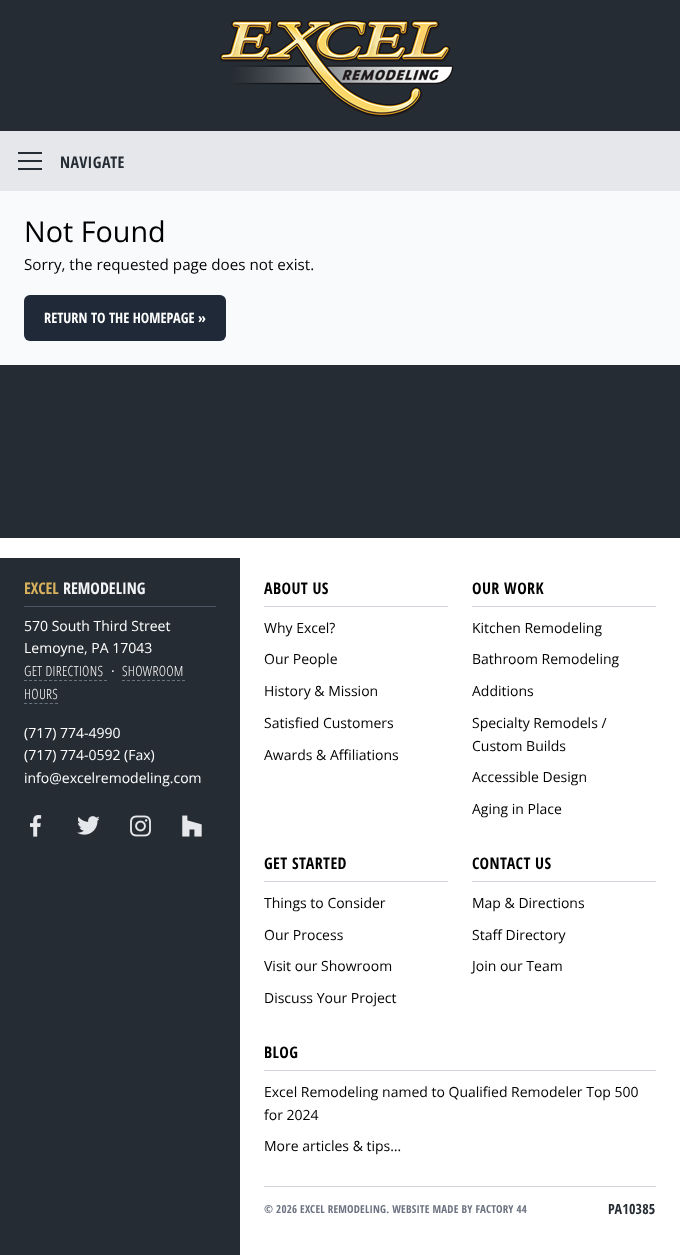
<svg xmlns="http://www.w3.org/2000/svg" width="680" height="1255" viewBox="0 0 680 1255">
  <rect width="100%" height="100%" fill="#262c33"/>
  <image x="220" y="20" width="234" height="97" href="img/1.png"/>
  <path d="M0 131h680v60H0z" fill="#e5e7eb"/>
  <path d="M18 152h24v2H18z" fill="#262c33"/>
  <path d="M18 160h24v2H18z" fill="#262c33"/>
  <path d="M18 168h24v2H18z" fill="#262c33"/>
  <path d="M0 191h680v174H0z" fill="#f9fafb"/>
  <rect x="24" y="295" width="202" height="46" rx="6" fill="#1f2937"/>
  <path d="M0 538h680v717H0z" fill="#fff"/>
  <path d="M0 558h240v697H0z" fill="#262c33"/>
  <path d="M24 606h192v1H24z" fill="#4b5563"/>
  <path d="M24 680.5H107" fill="none" stroke="#6b7280" stroke-dasharray="3 2"/>
  <path d="M122 680.5H185" fill="none" stroke="#6b7280" stroke-dasharray="3 2"/>
  <path d="M24 703.5H58" fill="none" stroke="#6b7280" stroke-dasharray="3 2.17"/>
  <image x="30" y="815" width="12" height="22" href="img/2.png"/>
  <image x="77" y="816" width="22" height="19" href="img/3.png"/>
  <image x="130" y="815" width="21" height="22" href="img/4.png"/>
  <image x="182" y="815" width="20" height="22" href="img/5.png"/>
  <path d="M264 606h184v1H264z" fill="#d1d5db"/>
  <path d="M472 606h184v1H472z" fill="#d1d5db"/>
  <path d="M264 881h184v1H264z" fill="#d1d5db"/>
  <path d="M472 881h184v1H472z" fill="#d1d5db"/>
  <path d="M264 1070h392v1H264z" fill="#d1d5db"/>
  <path d="M264 1186h392v1H264z" fill="#d1d5db"/>
  <text x="60" y="168" font-family="Open Sans Condensed" font-size="16" font-weight="bold" letter-spacing="0.4" fill="#262c33">NAVIGATE</text>
  <text x="24" y="242" font-family="Open Sans" font-size="28.75" fill="#000">Not Found</text>
  <text x="24" y="270" font-family="Open Sans" font-size="15.2" fill="#000">Sorry, the requested page does not exist.</text>
  <text x="44" y="323" font-family="Open Sans Condensed" font-size="14.25" font-weight="bold" fill="#fff">RETURN TO THE HOMEPAGE »</text>
  <text x="24" y="594" font-family="Open Sans Condensed" font-size="16" font-weight="bold" fill="#d9b25d">EXCEL</text>
  <text x="63" y="594" font-family="Open Sans Condensed" font-size="16" font-weight="bold" fill="#f3f4f6">REMODELING</text>
  <g font-family="Open Sans" font-size="14" fill="#fff">
    <text x="24" y="631">570 South Third Street</text>
    <text x="24" y="653">Lemoyne, PA 17043</text>
  </g>
  <text x="24" y="676" font-family="Open Sans" font-size="14" font-weight="300" letter-spacing="0.3" fill="#fff">GET DIRECTIONS</text>
  <text x="111" y="676" font-family="Open Sans" font-size="14" fill="#fff">·</text>
  <g font-family="Open Sans" font-size="14" font-weight="300" letter-spacing="0.3" fill="#fff">
    <text x="122" y="676">SHOWROOM</text>
    <text x="24" y="699">HOURS</text>
  </g>
  <g font-family="Open Sans" font-size="14" fill="#fff">
    <text x="24" y="738">(717) 774-4990</text>
    <text x="24" y="760">(717) 774-0592 (Fax)</text>
    <text x="24" y="783">info@excelremodeling.com</text>
  </g>
  <text x="264" y="594" font-family="Open Sans Condensed" font-size="16" font-weight="bold" letter-spacing="0.4" fill="#000">ABOUT US</text>
  <g font-family="Open Sans" font-size="14" fill="#000">
    <text x="264" y="633">Why Excel?</text>
    <text x="264" y="664">Our People</text>
    <text x="264" y="696">History &amp; Mission</text>
    <text x="264" y="728">Satisfied Customers</text>
    <text x="264" y="760">Awards &amp; Affiliations</text>
  </g>
  <text x="472" y="594" font-family="Open Sans Condensed" font-size="16" font-weight="bold" letter-spacing="0.4" fill="#000">OUR WORK</text>
  <g font-family="Open Sans" font-size="14" fill="#000">
    <text x="472" y="633">Kitchen Remodeling</text>
    <text x="472" y="664">Bathroom Remodeling</text>
    <text x="472" y="696">Additions</text>
    <text x="472" y="728">Specialty Remodels /</text>
    <text x="472" y="751">Custom Builds</text>
    <text x="472" y="782">Accessible Design</text>
    <text x="472" y="814">Aging in Place</text>
  </g>
  <text x="264" y="869" font-family="Open Sans Condensed" font-size="16" font-weight="bold" letter-spacing="0.4" fill="#000">GET STARTED</text>
  <g font-family="Open Sans" font-size="14" fill="#000">
    <text x="264" y="908">Things to Consider</text>
    <text x="264" y="940">Our Process</text>
    <text x="264" y="971">Visit our Showroom</text>
    <text x="264" y="1003">Discuss Your Project</text>
  </g>
  <text x="472" y="869" font-family="Open Sans Condensed" font-size="16" font-weight="bold" letter-spacing="0.4" fill="#000">CONTACT US</text>
  <g font-family="Open Sans" font-size="14" fill="#000">
    <text x="472" y="908">Map &amp; Directions</text>
    <text x="472" y="940">Staff Directory</text>
    <text x="472" y="971">Join our Team</text>
  </g>
  <text x="264" y="1058" font-family="Open Sans Condensed" font-size="16" font-weight="bold" letter-spacing="0.4" fill="#000">BLOG</text>
  <g font-family="Open Sans" font-size="14" fill="#000">
    <text x="264" y="1097">Excel Remodeling named to Qualified Remodeler Top 500</text>
    <text x="264" y="1120">for 2024</text>
    <text x="264" y="1151">More articles &amp; tips…</text>
  </g>
  <text x="264" y="1213" font-family="Open Sans Condensed" font-size="11" font-weight="bold" letter-spacing="0.17" fill="#6b7280">© 2026 EXCEL REMODELING. WEBSITE MADE BY FACTORY 44</text>
  <text x="608" y="1214" font-family="Open Sans Condensed" font-size="14" font-weight="bold" letter-spacing="0.17" fill="#262c33">PA10385</text>
</svg>
